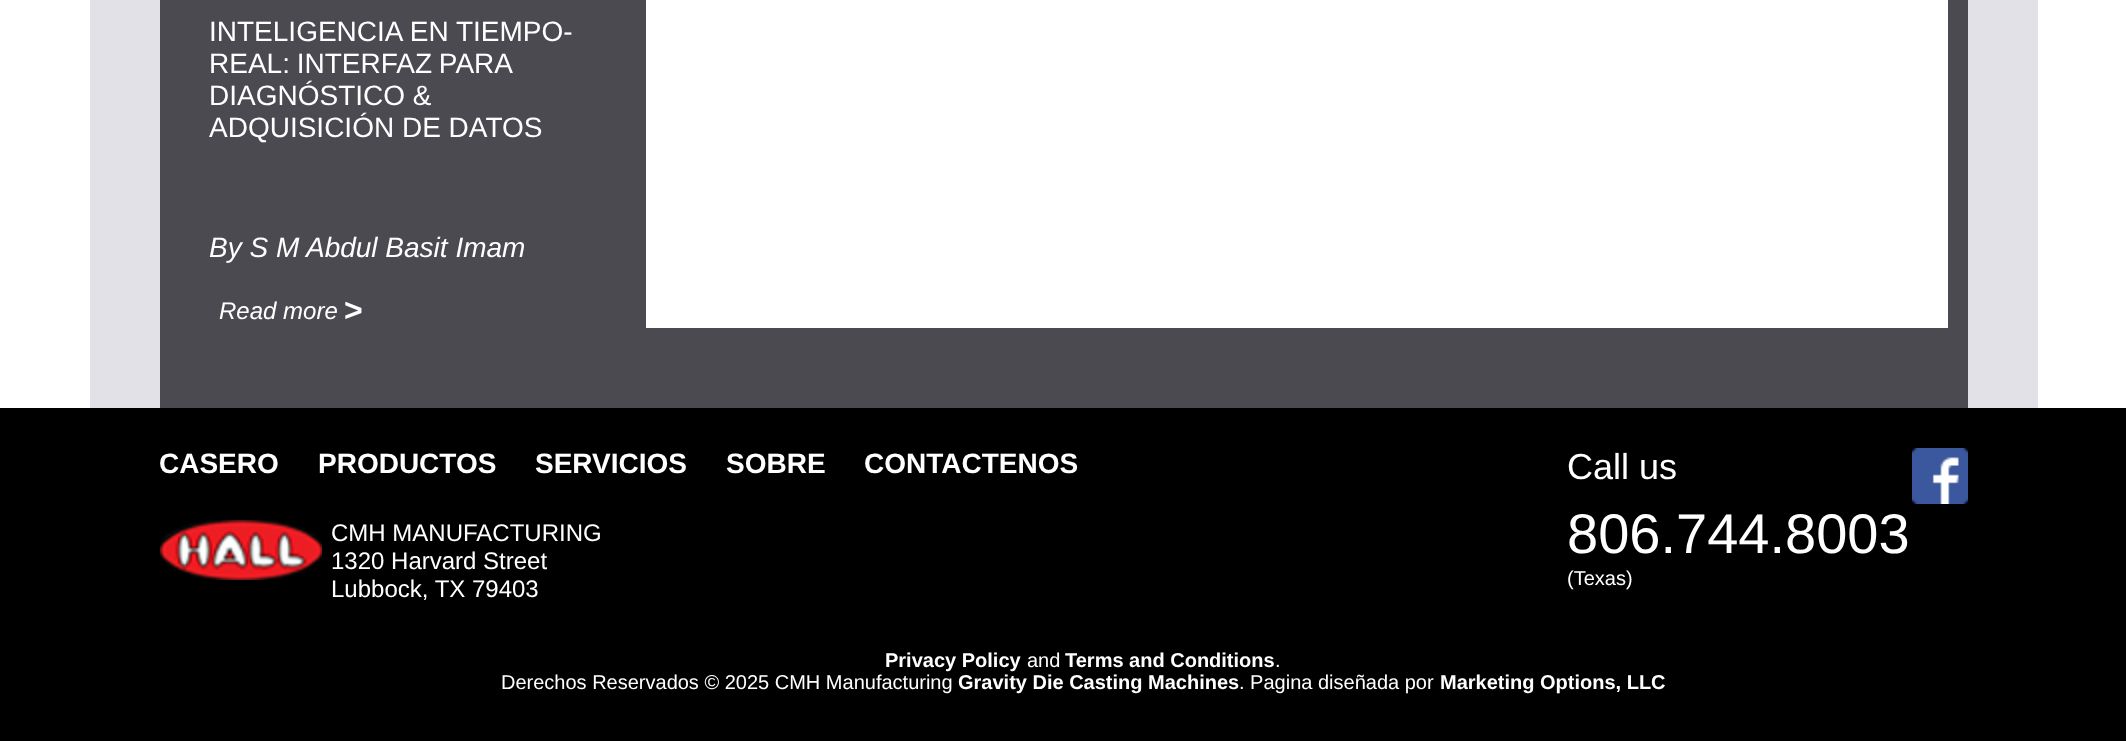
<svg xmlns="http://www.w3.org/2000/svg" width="2126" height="741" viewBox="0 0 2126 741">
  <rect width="100%" height="100%" fill="#fff"/>
  <path d="M90 0h1948v408H90z" fill="#e1e1e7"/>
  <path d="M160 0h1808v408H160z" fill="#4b4a51"/>
  <path d="M646 0h1302v328H646z" fill="#fff"/>
  <path d="M0 408h2126v333H0z" fill="#000"/>
  <image x="160" y="520" width="162" height="60" href="img/1.png"/>
  <image x="1912" y="448" width="56" height="56" href="img/2.png"/>
  <g font-family="Liberation Sans" font-size="28" fill="#fff">
    <text x="209" y="41">INTELIGENCIA EN TIEMPO-</text>
    <text x="209" y="73" word-spacing="-1">REAL: INTERFAZ PARA</text>
    <text x="209" y="105">DIAGNÓSTICO &amp;</text>
    <text x="209" y="137">ADQUISICIÓN DE DATOS</text>
  </g>
  <text x="209" y="257" font-family="Liberation Sans" font-size="28" font-style="italic" fill="#fff">By S M Abdul Basit Imam</text>
  <text x="219" y="319" font-family="Liberation Sans" font-size="24" font-style="italic" fill="#fff">Read more</text>
  <text x="344" y="321" font-family="Liberation Sans" font-size="32" font-weight="bold" fill="#fff">&gt;</text>
  <g font-family="Liberation Sans" font-size="28" font-weight="bold" fill="#fff">
    <text x="159" y="473">CASERO</text>
    <text x="318" y="473">PRODUCTOS</text>
    <text x="535" y="473">SERVICIOS</text>
    <text x="726" y="473">SOBRE</text>
    <text x="864" y="473">CONTACTENOS</text>
  </g>
  <g font-family="Liberation Sans" font-size="24" fill="#fff">
    <text x="331" y="541">CMH MANUFACTURING</text>
    <text x="331" y="569">1320 Harvard Street</text>
    <text x="331" y="597">Lubbock, TX 79403</text>
  </g>
  <text x="1567" y="479" font-family="Liberation Sans" font-size="36" fill="#fff">Call us</text>
  <text x="1567" y="553" font-family="Liberation Sans" font-size="56" fill="#fff">806.744.8003</text>
  <text x="1567" y="585" font-family="Liberation Sans" font-size="20" fill="#fff">(Texas)</text>
  <text x="885" y="667" font-family="Liberation Sans" font-size="20" font-weight="bold" fill="#fff">Privacy Policy</text>
  <text x="1027" y="667" font-family="Liberation Sans" font-size="20" fill="#fff">and</text>
  <text x="1065" y="667" font-family="Liberation Sans" font-size="20" font-weight="bold" fill="#fff">Terms and Conditions</text>
  <g font-family="Liberation Sans" font-size="20" fill="#fff">
    <text x="1275" y="667">.</text>
    <text x="501" y="689">Derechos Reservados © 2025 CMH Manufacturing</text>
  </g>
  <text x="958" y="689" font-family="Liberation Sans" font-size="20" font-weight="bold" fill="#fff">Gravity Die Casting Machines</text>
  <text x="1239" y="689" font-family="Liberation Sans" font-size="20" fill="#fff">. Pagina diseñada por</text>
  <text x="1440" y="689" font-family="Liberation Sans" font-size="20" font-weight="bold" fill="#fff">Marketing Options, LLC</text>
</svg>
